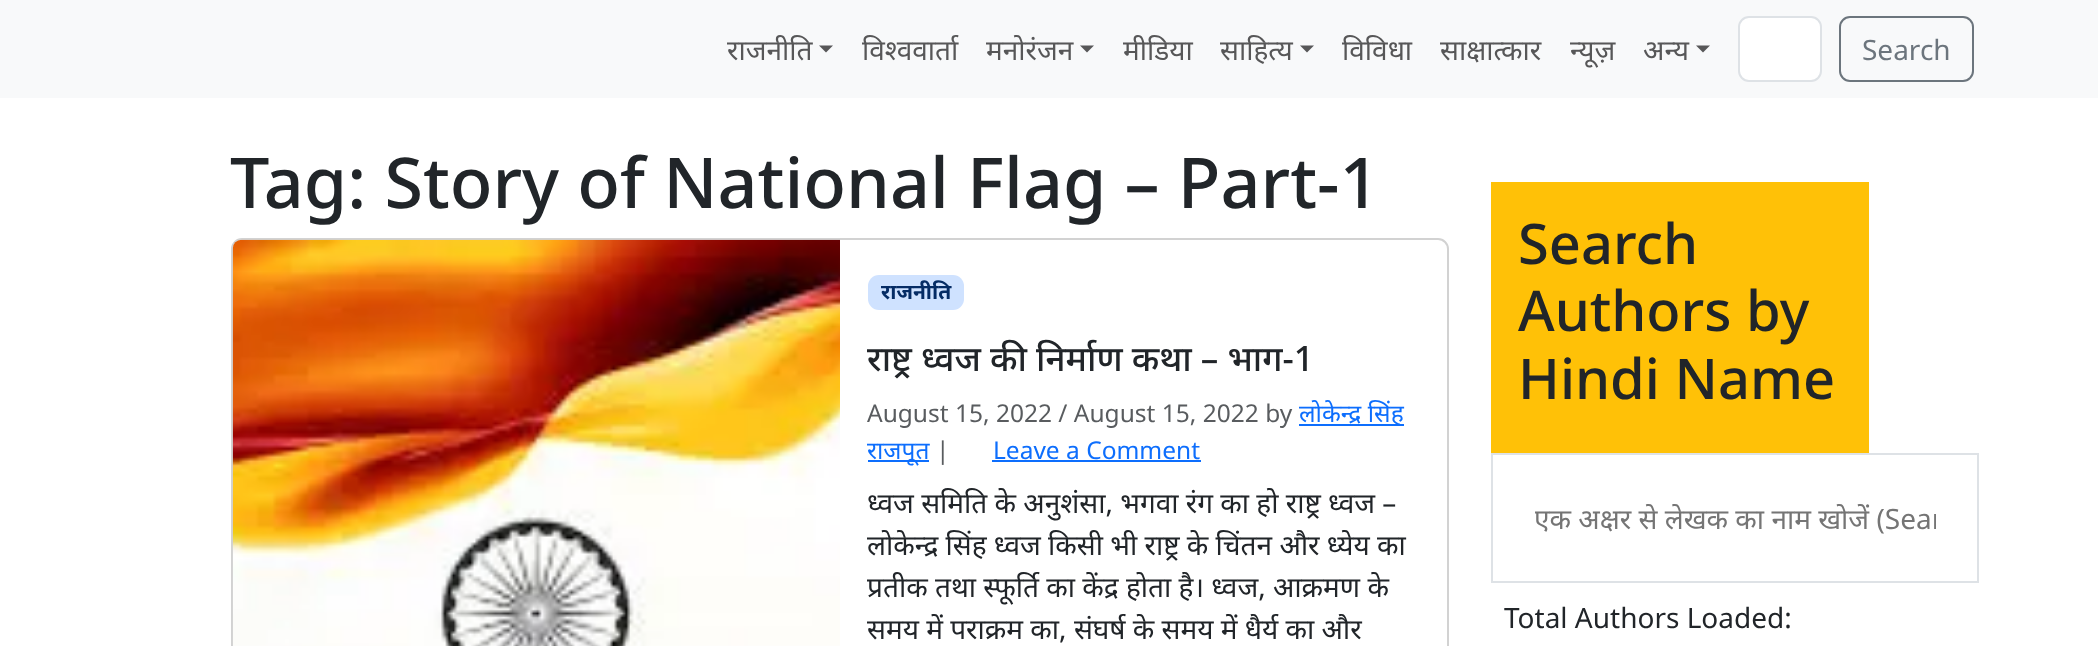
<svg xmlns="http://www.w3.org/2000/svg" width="2098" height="646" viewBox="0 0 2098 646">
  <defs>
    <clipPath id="clip1"><path d="M1535 499h401v38H1535z"/></clipPath>
  </defs>
  <rect width="100%" height="100%" fill="#fff"/>
  <path d="M0 0h2098v98H0z" fill="#f8f9fa"/>
  <path d="M819 45.5H833L826 52.5Z" fill="#575758"/>
  <path d="M1080 45.5H1094L1087 52.5Z" fill="#575758"/>
  <path d="M1300 45.5H1314L1307 52.5Z" fill="#575758"/>
  <path d="M1696 45.5H1710L1703 52.5Z" fill="#575758"/>
  <rect x="1739" y="17" width="82" height="64" rx="10" fill="#fff" stroke="#dee2e6" stroke-width="2"/>
  <rect x="1840" y="17" width="133" height="64" rx="10" fill="none" stroke="#6c757d" stroke-width="2"/>
  <rect x="232" y="239" width="1216" height="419" rx="10" fill="none" stroke="#d2d2d2" stroke-width="2"/>
  <image x="232" y="239" width="608" height="407" href="img/1.png"/>
  <rect x="868" y="275" width="96" height="35" rx="11" fill="#cfe2ff"/>
  <path d="M1299 424h105v2H1299z" fill="#0d6efd"/>
  <path d="M868 460h61v2H868z" fill="#0d6efd"/>
  <path d="M992 460h209v2H992z" fill="#0d6efd"/>
  <path d="M1491 182h378v271H1491z" fill="#ffc107"/>
  <path d="M1492 454h486v128H1492z" fill="none" stroke="#dee2e6" stroke-width="2"/>
  <g font-family="Noto Sans" font-size="28" fill="#575758">
    <text x="727" y="60">राजनीति</text>
    <text x="862" y="60">विश्ववार्ता</text>
    <text x="986" y="60">मनोरंजन</text>
    <text x="1123" y="60">मीडिया</text>
    <text x="1220" y="60">साहित्‍य</text>
    <text x="1342" y="60">विविधा</text>
    <text x="1440" y="60">साक्षात्‍कार</text>
    <text x="1570" y="60">न्यूज़</text>
    <text x="1643" y="60">अन्य</text>
  </g>
  <text x="1862" y="60" font-family="Noto Sans" font-size="28" fill="#6c757d">Search</text>
  <text x="230" y="208" font-family="Noto Sans" font-size="70" font-weight="500" fill="#212529">Tag: Story of National Flag – Part-1</text>
  <text x="881" y="299" font-family="Noto Sans" font-size="21" font-weight="bold" fill="#052c65">राजनीति</text>
  <text x="867" y="371" font-family="Noto Sans" font-size="35" font-weight="500" fill="#212529">राष्ट्र ध्वज की निर्माण कथा – भाग-1</text>
  <text x="867" y="422" font-family="Noto Sans" font-size="24.5" fill="#595c5f">August 15, 2022 / August 15, 2022 by</text>
  <g font-family="Noto Sans" font-size="24.5" fill="#0d6efd">
    <text x="1299" y="422">लोकेन्द्र सिंह</text>
    <text x="867" y="459">राजपूत</text>
  </g>
  <text x="936" y="459" font-family="Noto Sans" font-size="24.5" fill="#595c5f">|</text>
  <text x="993" y="459" font-family="Noto Sans" font-size="24.5" fill="#0d6efd">Leave a Comment</text>
  <g font-family="Noto Sans" font-size="28" fill="#212529">
    <text x="867" y="513">ध्वज समिति के अनुशंसा, भगवा रंग का हो राष्ट्र ध्वज –</text>
    <text x="867" y="555">लोकेन्द्र सिंह ध्वज किसी भी राष्ट्र के चिंतन और ध्येय का</text>
    <text x="867" y="597">प्रतीक तथा स्फूर्ति का केंद्र होता है। ध्वज, आक्रमण के</text>
    <text x="867" y="639">समय में पराक्रम का, संघर्ष के समय में धैर्य का और</text>
  </g>
  <g font-family="Noto Sans" font-size="56" font-weight="500" fill="#212529">
    <text x="1518" y="264">Search</text>
    <text x="1518" y="331">Authors by</text>
    <text x="1518" y="399">Hindi Name</text>
  </g>
  <g clip-path="url(#clip1)">
    <text x="1534" y="529" font-family="Noto Sans" font-size="28" fill="#757575">एक अक्षर से लेखक का नाम खोजें (Sear</text>
  </g>
  <text x="1504" y="628" font-family="Noto Sans" font-size="28" fill="#212529">Total Authors Loaded:</text>
</svg>
